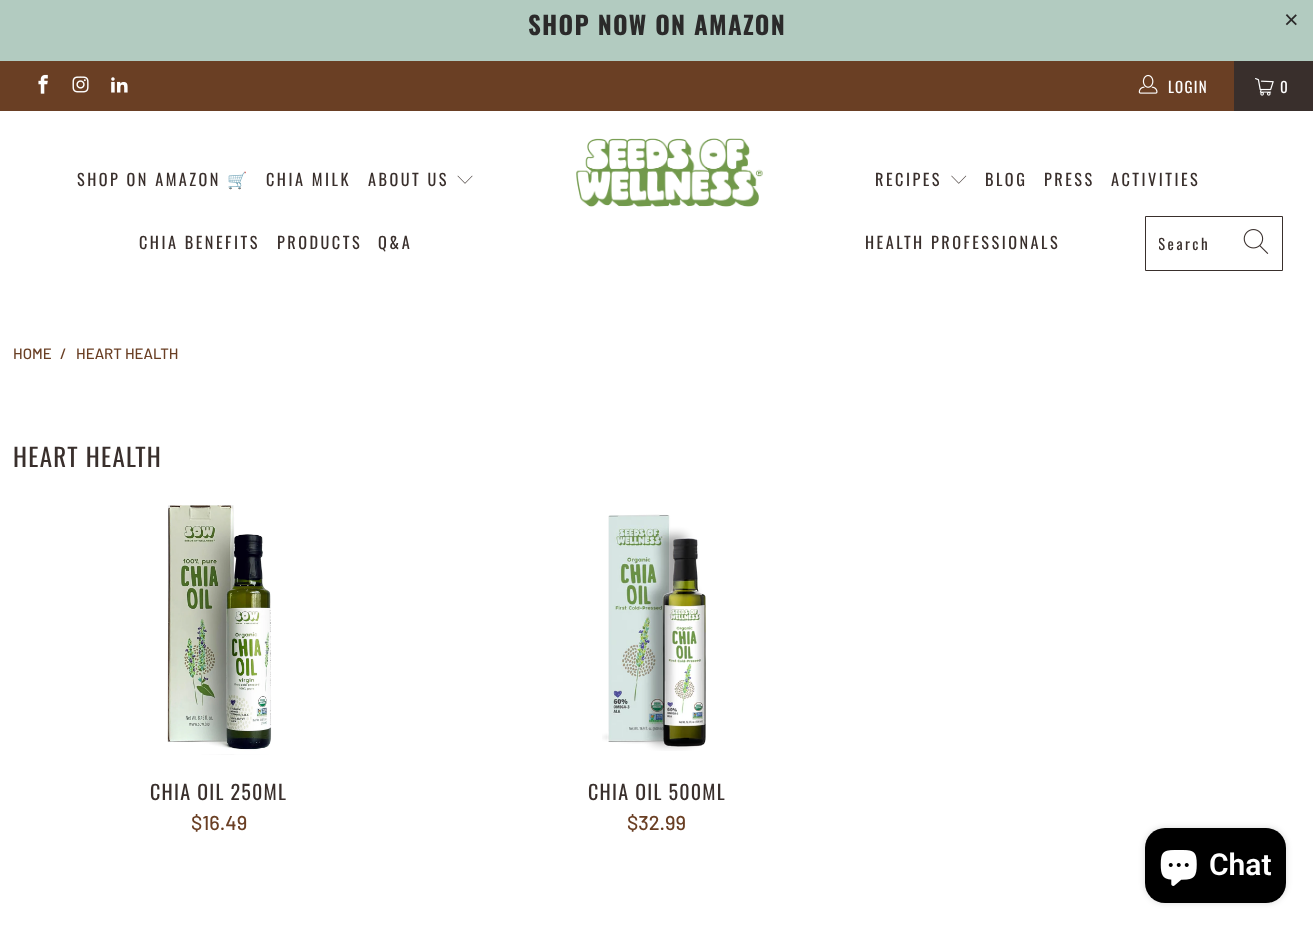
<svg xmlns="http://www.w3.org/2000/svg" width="1313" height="928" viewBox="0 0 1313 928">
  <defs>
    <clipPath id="clip1"><path d="M1159 233h79v21H1159z"/></clipPath>
  </defs>
  <rect width="100%" height="100%" fill="#fff"/>
  <path d="M0 0h1313v61H0z" fill="#b2cbc0"/>
  <path d="M0 61h1234v50H0z" fill="#6a3f24"/>
  <image x="38" y="74" width="10" height="20" href="img/1.png"/>
  <image x="72" y="76" width="17" height="17" href="img/2.png"/>
  <image x="111" y="77" width="17" height="16" href="img/3.png"/>
  <image x="1138" y="74" width="20" height="20" href="img/4.png"/>
  <path d="M1234 61h79v50H1234z" fill="#392f2c"/>
  <image x="1255" y="78" width="19" height="18" href="img/5.png"/>
  <image x="457" y="175" width="16" height="9" href="img/6.png"/>
  <image x="576" y="138" width="187" height="69" href="img/7.png"/>
  <image x="951" y="175" width="16" height="9" href="img/8.png"/>
  <path d="M1145.5 216.5h137v54H1145.5z" fill="none" stroke="#392f2c"/>
  <image x="1243" y="229" width="26" height="25" href="img/9.png"/>
  <image x="167" y="505" width="105" height="250" href="img/10.png"/>
  <image x="602" y="514" width="104" height="237" href="img/11.png"/>
  <rect x="1145" y="828" width="141" height="75" rx="20" fill="#00000026" filter="blur(3px)"/>
  <rect x="1145" y="828" width="141" height="75" rx="20" fill="#000"/>
  <image x="1160" y="850" width="37" height="36" href="img/12.png"/>
  <text x="528" y="35" font-family="Oswald" font-size="25" font-weight="bold" letter-spacing="1.25" fill="#2b2a2a">SHOP NOW ON AMAZON</text>
  <text x="1284" y="28" font-family="Liberation Sans" font-size="25" letter-spacing="1.25" fill="#2b2a2a">×</text>
  <g font-family="Oswald" font-size="15" letter-spacing="1.25" fill="#fff">
    <text x="1168" y="93">LOGIN</text>
    <text x="1280" y="93">0</text>
  </g>
  <text x="77" y="186" font-family="Oswald" font-size="16.25" letter-spacing="2.5" fill="#392f2c">SHOP ON AMAZON</text>
  <text x="227" y="186" font-family="Noto Color Emoji" font-size="16.25" letter-spacing="2.5" fill="#392f2c">🛒</text>
  <g font-family="Oswald" font-size="16.25" letter-spacing="2.5" fill="#392f2c">
    <text x="266" y="186">CHIA MILK</text>
    <text x="368" y="186">ABOUT US</text>
    <text x="139" y="249">CHIA BENEFITS</text>
    <text x="277" y="249">PRODUCTS</text>
    <text x="378" y="249">Q&amp;A</text>
    <text x="875" y="186">RECIPES</text>
    <text x="985" y="186">BLOG</text>
    <text x="1044" y="186">PRESS</text>
    <text x="1111" y="186">ACTIVITIES</text>
    <text x="865" y="249">HEALTH PROFESSIONALS</text>
  </g>
  <g clip-path="url(#clip1)">
    <text x="1158" y="250" font-family="Oswald" font-size="15" letter-spacing="2.5" fill="#392f2c">Search</text>
  </g>
  <g font-family="Barlow" font-size="15" font-weight="500" fill="#6a3f24">
    <text x="13" y="359">HOME</text>
    <text x="60" y="359">/</text>
    <text x="76" y="359">HEART HEALTH</text>
  </g>
  <text x="13" y="467" font-family="Oswald" font-size="25" letter-spacing="1.25" fill="#392f2c">HEART HEALTH</text>
  <text x="150" y="800" font-family="Oswald" font-size="20" letter-spacing="1.25" fill="#392f2c">CHIA OIL 250ML</text>
  <text x="191" y="830" font-family="Barlow" font-size="20" font-weight="500" fill="#6a3f24">$16.49</text>
  <text x="588" y="800" font-family="Oswald" font-size="20" letter-spacing="1.25" fill="#392f2c">CHIA OIL 500ML</text>
  <text x="627" y="830" font-family="Barlow" font-size="20" font-weight="500" fill="#6a3f24">$32.99</text>
  <text x="1209" y="875" font-family="Roboto" font-size="30" font-weight="600" fill="#fff">Chat</text>
</svg>
